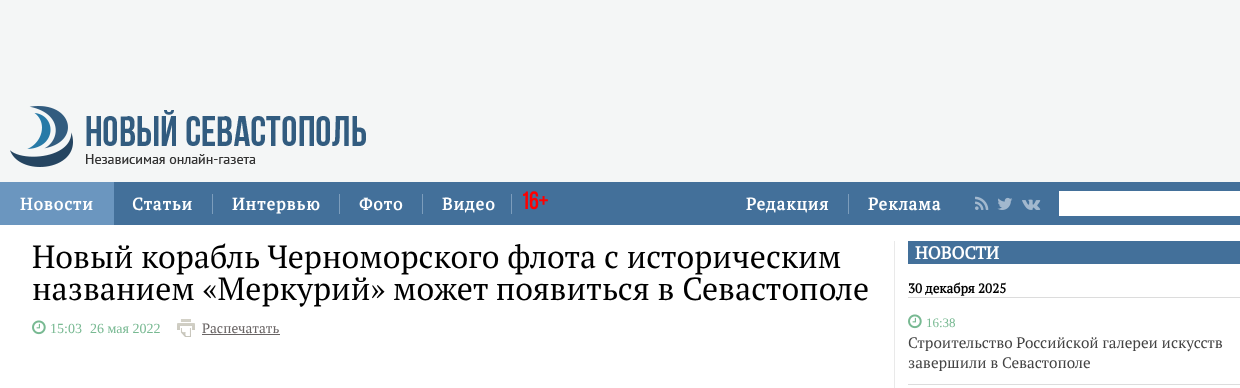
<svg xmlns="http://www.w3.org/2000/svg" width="1240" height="388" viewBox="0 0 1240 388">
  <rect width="100%" height="100%" fill="#f4f6f6"/>
  <image x="10" y="106" width="356" height="61" href="img/1.png"/>
  <path d="M114 182h1126v43H114z" fill="#43709a"/>
  <path d="M0 182h114v43H0z" fill="#6b96bf"/>
  <path d="M212 194h1v20H212z" fill="#7c9dbc"/>
  <path d="M339 194h1v20H339z" fill="#7c9dbc"/>
  <path d="M422 194h1v20H422z" fill="#7c9dbc"/>
  <path d="M511 194h1v20H511z" fill="#7c9dbc"/>
  <path d="M848 194h1v20H848z" fill="#7c9dbc"/>
  <image x="975" y="196" width="14" height="14" href="img/2.png"/>
  <image x="997" y="197" width="16" height="13" href="img/3.png"/>
  <image x="1022" y="199" width="19" height="11" href="img/4.png"/>
  <path d="M1059 191h181v25H1059z" fill="#fff"/>
  <path d="M0 225h1240v163H0z" fill="#fff"/>
  <image x="32" y="320" width="14" height="15" href="img/5.png"/>
  <image x="177" y="319" width="18" height="18" href="img/6.png"/>
  <path d="M202 334h78v1H202z" fill="#696464"/>
  <path d="M894 241h1v147H894z" fill="#e9e9e9"/>
  <path d="M908 241h332v23H908z" fill="#43709a"/>
  <path d="M908 297h332v1H908z" fill="#dcdcdc"/>
  <image x="908" y="314" width="14" height="15" href="img/5.png"/>
  <path d="M908 384h332v1H908z" fill="#dcdcdc"/>
  <g font-family="PT Serif" font-size="17" font-weight="bold" letter-spacing="1" fill="#fff">
    <text x="20" y="210">Новости</text>
    <text x="132" y="210">Статьи</text>
    <text x="232" y="210">Интервью</text>
    <text x="359" y="210">Фото</text>
    <text x="442" y="210">Видео</text>
  </g>
  <text x="521" y="209" font-family="Bebas Neue" font-size="24" font-weight="bold" fill="#f00">16+</text>
  <g font-family="PT Serif" font-size="17" font-weight="bold" letter-spacing="1" fill="#fff">
    <text x="746" y="210">Редакция</text>
    <text x="868" y="210">Реклама</text>
  </g>
  <g font-family="PT Serif" font-size="32" fill="#000">
    <text x="32" y="268">Новый корабль Черноморского флота с историческим</text>
    <text x="32" y="300">названием «Меркурий» может появиться в Севастополе</text>
  </g>
  <g font-family="Liberation Serif" font-size="14" fill="#78b992">
    <text x="50" y="333">15:03</text>
    <text x="90" y="333">26 мая 2022</text>
  </g>
  <text x="202" y="333" font-family="PT Serif" font-size="13.5" fill="#696464">Распечатать</text>
  <text x="915" y="259" font-family="PT Serif" font-size="17.5" font-weight="bold" fill="#fff">НОВОСТИ</text>
  <text x="908" y="293" font-family="PT Serif" font-size="13.25" font-weight="bold" fill="#000">30 декабря 2025</text>
  <text x="926" y="327" font-family="Liberation Serif" font-size="13" fill="#78b992">16:38</text>
  <g font-family="PT Serif" font-size="15.2" fill="#434343">
    <text x="908" y="348">Строительство Российской галереи искусств</text>
    <text x="908" y="368">завершили в Севастополе</text>
  </g>
</svg>
